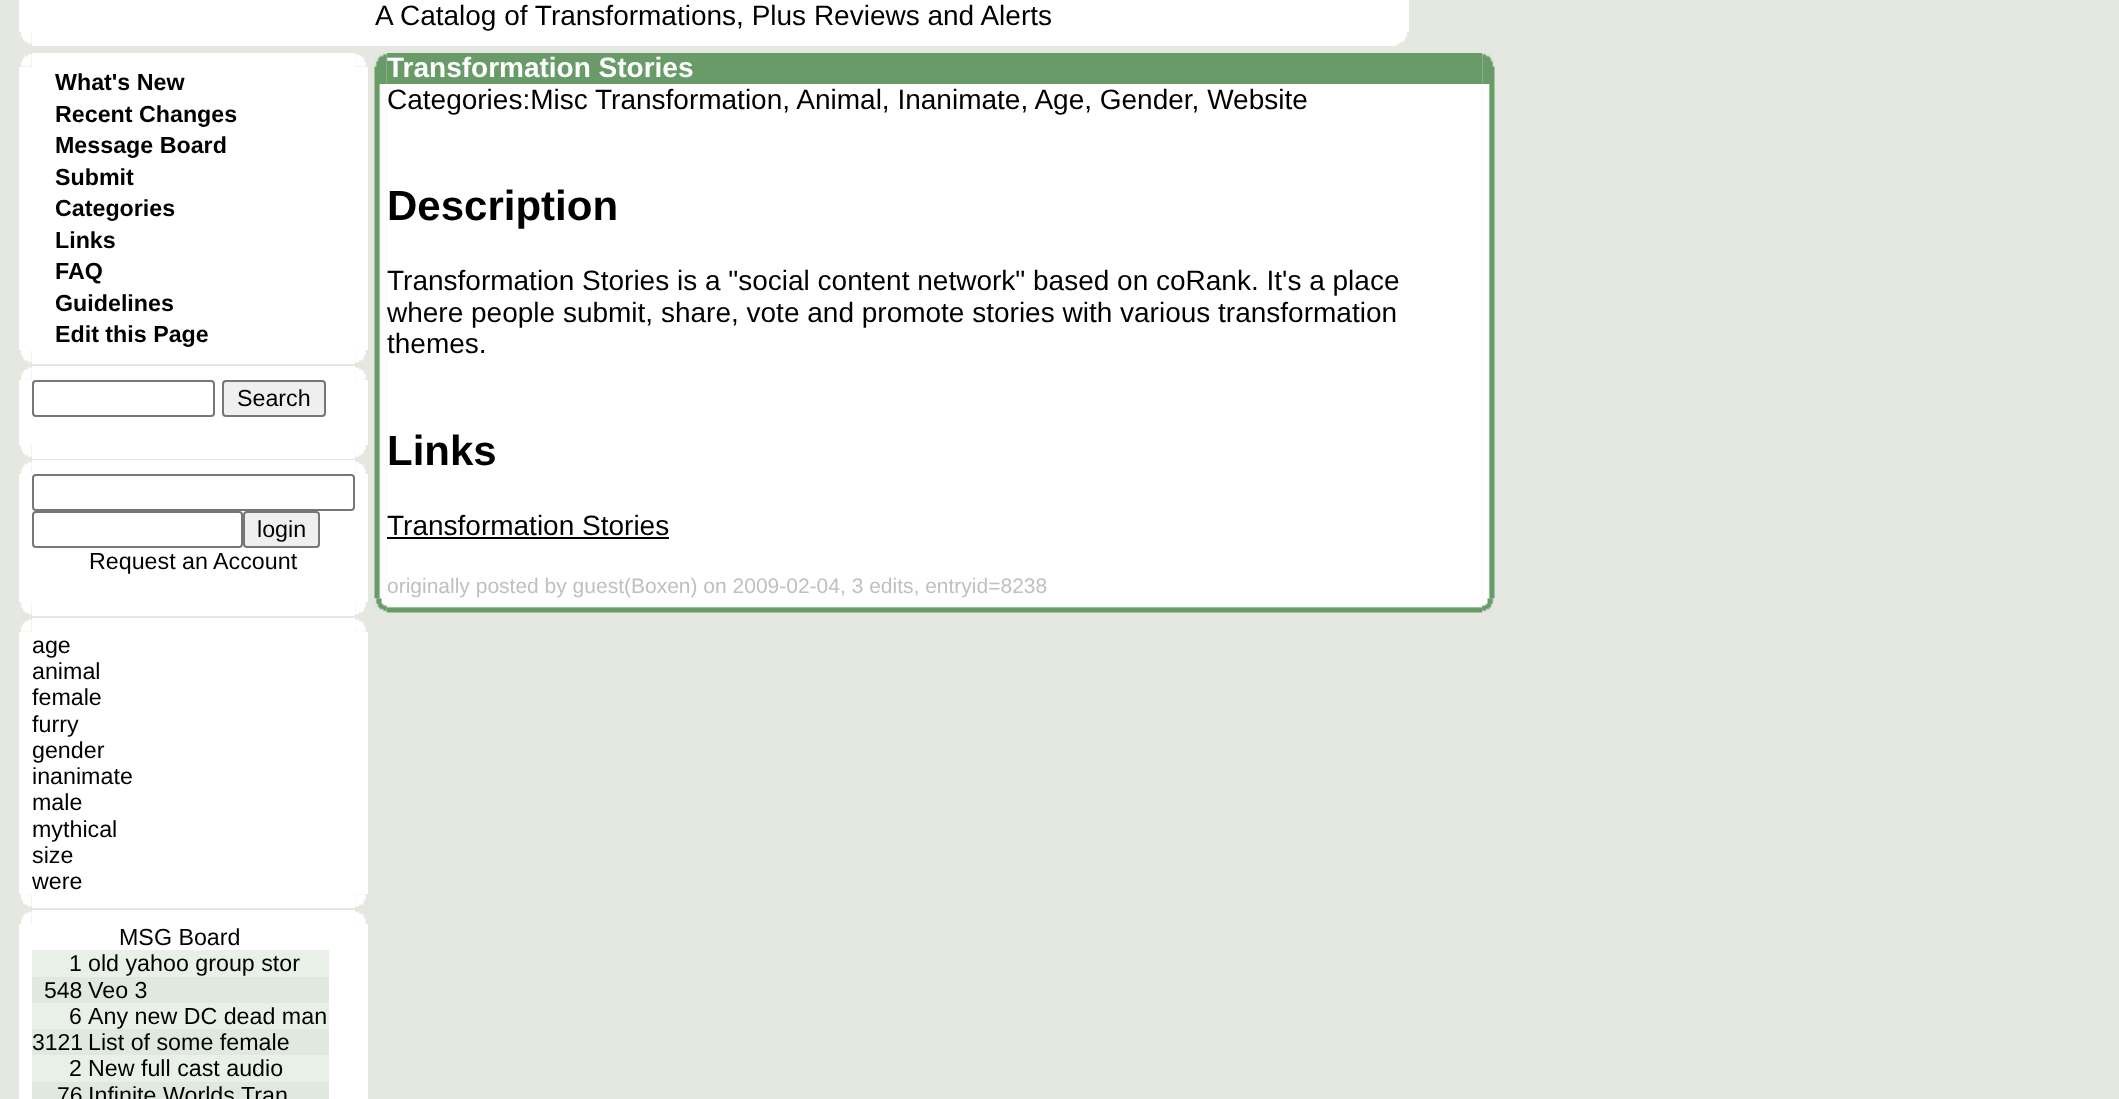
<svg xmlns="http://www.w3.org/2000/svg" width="2119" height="1099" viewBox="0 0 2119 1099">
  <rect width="100%" height="100%" fill="#e4e8e0"/>
  <path d="M19 0h1390v32H19z" fill="#fff"/>
  <image x="20" y="32" width="12" height="12" href="img/1.png"/>
  <path d="M32 32h1365v14H32z" fill="#fff"/>
  <image x="1397" y="32" width="11" height="12" href="img/2.png"/>
  <image x="20" y="54" width="12" height="13" href="img/3.png"/>
  <path d="M32 53h323v14H32z" fill="#fff"/>
  <image x="355" y="54" width="11" height="13" href="img/4.png"/>
  <path d="M19 67h349v283H19z" fill="#fff"/>
  <image x="20" y="350" width="12" height="13" href="img/5.png"/>
  <path d="M32 350h323v14H32z" fill="#fff"/>
  <image x="355" y="350" width="11" height="13" href="img/6.png"/>
  <image x="20" y="367" width="12" height="13" href="img/7.png"/>
  <path d="M32 366h323v14H32z" fill="#fff"/>
  <image x="355" y="367" width="11" height="13" href="img/8.png"/>
  <path d="M19 380h349v65H19z" fill="#fff"/>
  <rect x="33" y="381" width="181" height="35" rx="3" fill="none" stroke="#767676" stroke-width="2"/>
  <rect x="223" y="381" width="102" height="35" rx="3" fill="#efefef" stroke="#767676" stroke-width="2"/>
  <image x="20" y="445" width="12" height="12" href="img/1.png"/>
  <path d="M32 445h323v14H32z" fill="#fff"/>
  <image x="355" y="445" width="11" height="12" href="img/9.png"/>
  <image x="20" y="461" width="12" height="13" href="img/10.png"/>
  <path d="M32 460h323v14H32z" fill="#fff"/>
  <image x="355" y="461" width="11" height="13" href="img/11.png"/>
  <path d="M19 474h349v128H19z" fill="#fff"/>
  <rect x="33" y="475" width="321" height="35" rx="3" fill="none" stroke="#767676" stroke-width="2"/>
  <rect x="33" y="512" width="209" height="35" rx="3" fill="none" stroke="#767676" stroke-width="2"/>
  <rect x="244" y="512" width="75" height="35" rx="3" fill="#efefef" stroke="#767676" stroke-width="2"/>
  <image x="20" y="602" width="12" height="13" href="img/5.png"/>
  <path d="M32 602h323v14H32z" fill="#fff"/>
  <image x="355" y="602" width="11" height="13" href="img/6.png"/>
  <image x="20" y="619" width="12" height="13" href="img/7.png"/>
  <path d="M32 618h323v14H32z" fill="#fff"/>
  <image x="355" y="619" width="11" height="13" href="img/8.png"/>
  <path d="M19 632h349v262H19z" fill="#fff"/>
  <image x="20" y="894" width="12" height="13" href="img/12.png"/>
  <path d="M32 894h323v14H32z" fill="#fff"/>
  <image x="355" y="894" width="11" height="13" href="img/13.png"/>
  <image x="20" y="911" width="12" height="13" href="img/14.png"/>
  <path d="M32 910h323v14H32z" fill="#fff"/>
  <image x="355" y="911" width="11" height="13" href="img/15.png"/>
  <path d="M19 924h349v175H19z" fill="#fff"/>
  <path d="M32 950h297v27H32z" fill="#e8f0e8"/>
  <path d="M32 977h297v26H32z" fill="#e0e8e0"/>
  <path d="M32 1003h297v26H32z" fill="#e8f0e8"/>
  <path d="M32 1029h297v26H32z" fill="#e0e8e0"/>
  <path d="M32 1055h297v27H32z" fill="#e8f0e8"/>
  <path d="M32 1082h297v17H32z" fill="#e0e8e0"/>
  <image x="374" y="53" width="13" height="31" href="img/16.png"/>
  <path d="M387 53h1095v31H387z" fill="#699b69"/>
  <image x="1482" y="53" width="13" height="31" href="img/17.png"/>
  <image x="374" y="84" width="13" height="515" href="img/18.png"/>
  <path d="M387 84h1095v515H387z" fill="#fff"/>
  <path d="M387 537h282v2H387z" fill="#000"/>
  <image x="1482" y="84" width="13" height="515" href="img/19.png"/>
  <image x="374" y="598" width="13" height="14" href="img/20.png"/>
  <image x="386" y="599" width="1097" height="14" href="img/21.png"/>
  <image x="1482" y="598" width="13" height="15" href="img/22.png"/>
  <text x="375" y="25" font-family="Liberation Sans" font-size="28" fill="#000">A Catalog of Transformations, Plus Reviews and Alerts</text>
  <g font-family="Liberation Sans" font-size="23.25" font-weight="bold" fill="#000">
    <text x="55" y="90">What's New</text>
    <text x="55" y="122">Recent Changes</text>
    <text x="55" y="153">Message Board</text>
    <text x="55" y="185">Submit</text>
    <text x="55" y="216">Categories</text>
    <text x="55" y="248">Links</text>
    <text x="55" y="279">FAQ</text>
    <text x="55" y="311">Guidelines</text>
    <text x="55" y="342">Edit this Page</text>
  </g>
  <g font-family="Liberation Sans" font-size="23.25" fill="#000">
    <text x="237" y="406">Search</text>
    <text x="257" y="537">login</text>
    <text x="89" y="569">Request an Account</text>
    <text x="32" y="653">age</text>
    <text x="32" y="679">animal</text>
    <text x="32" y="705">female</text>
    <text x="32" y="732">furry</text>
    <text x="32" y="758">gender</text>
    <text x="32" y="784">inanimate</text>
    <text x="32" y="810">male</text>
    <text x="32" y="837">mythical</text>
    <text x="32" y="863">size</text>
    <text x="32" y="889">were</text>
    <text x="119" y="945">MSG Board</text>
  </g>
  <text x="69" y="971" font-family="Liberation Sans" font-size="23" fill="#000">1</text>
  <text x="88" y="971" font-family="Liberation Sans" font-size="23.25" fill="#000">old yahoo group stor</text>
  <text x="44" y="998" font-family="Liberation Sans" font-size="23" fill="#000">548</text>
  <text x="88" y="998" font-family="Liberation Sans" font-size="23.25" fill="#000">Veo 3</text>
  <text x="69" y="1024" font-family="Liberation Sans" font-size="23" fill="#000">6</text>
  <text x="88" y="1024" font-family="Liberation Sans" font-size="23.25" fill="#000">Any new DC dead man</text>
  <text x="32" y="1050" font-family="Liberation Sans" font-size="23" fill="#000">3121</text>
  <text x="88" y="1050" font-family="Liberation Sans" font-size="23.25" fill="#000">List of some female</text>
  <text x="69" y="1076" font-family="Liberation Sans" font-size="23" fill="#000">2</text>
  <text x="88" y="1076" font-family="Liberation Sans" font-size="23.25" fill="#000">New full cast audio</text>
  <text x="57" y="1103" font-family="Liberation Sans" font-size="23" fill="#000">76</text>
  <text x="88" y="1103" font-family="Liberation Sans" font-size="23.25" fill="#000">Infinite Worlds Tran</text>
  <text x="387" y="77" font-family="Liberation Sans" font-size="28" font-weight="bold" fill="#fff">Transformation Stories</text>
  <text x="387" y="109" font-family="Liberation Sans" font-size="28" fill="#000">Categories:Misc Transformation, Animal, Inanimate, Age, Gender, Website</text>
  <text x="387" y="220" font-family="Liberation Sans" font-size="42" font-weight="bold" fill="#000">Description</text>
  <g font-family="Liberation Sans" font-size="28" fill="#000">
    <text x="387" y="290">Transformation Stories is a "social content network" based on coRank. It's a place</text>
    <text x="387" y="322">where people submit, share, vote and promote stories with various transformation</text>
    <text x="387" y="353">themes.</text>
  </g>
  <text x="387" y="465" font-family="Liberation Sans" font-size="42" font-weight="bold" fill="#000">Links</text>
  <text x="387" y="535" font-family="Liberation Sans" font-size="28" fill="#000">Transformation Stories</text>
  <text x="387" y="593" font-family="Liberation Sans" font-size="21" fill="#c0c0c0">originally posted by guest(Boxen) on 2009-02-04, 3 edits, entryid=8238</text>
</svg>
